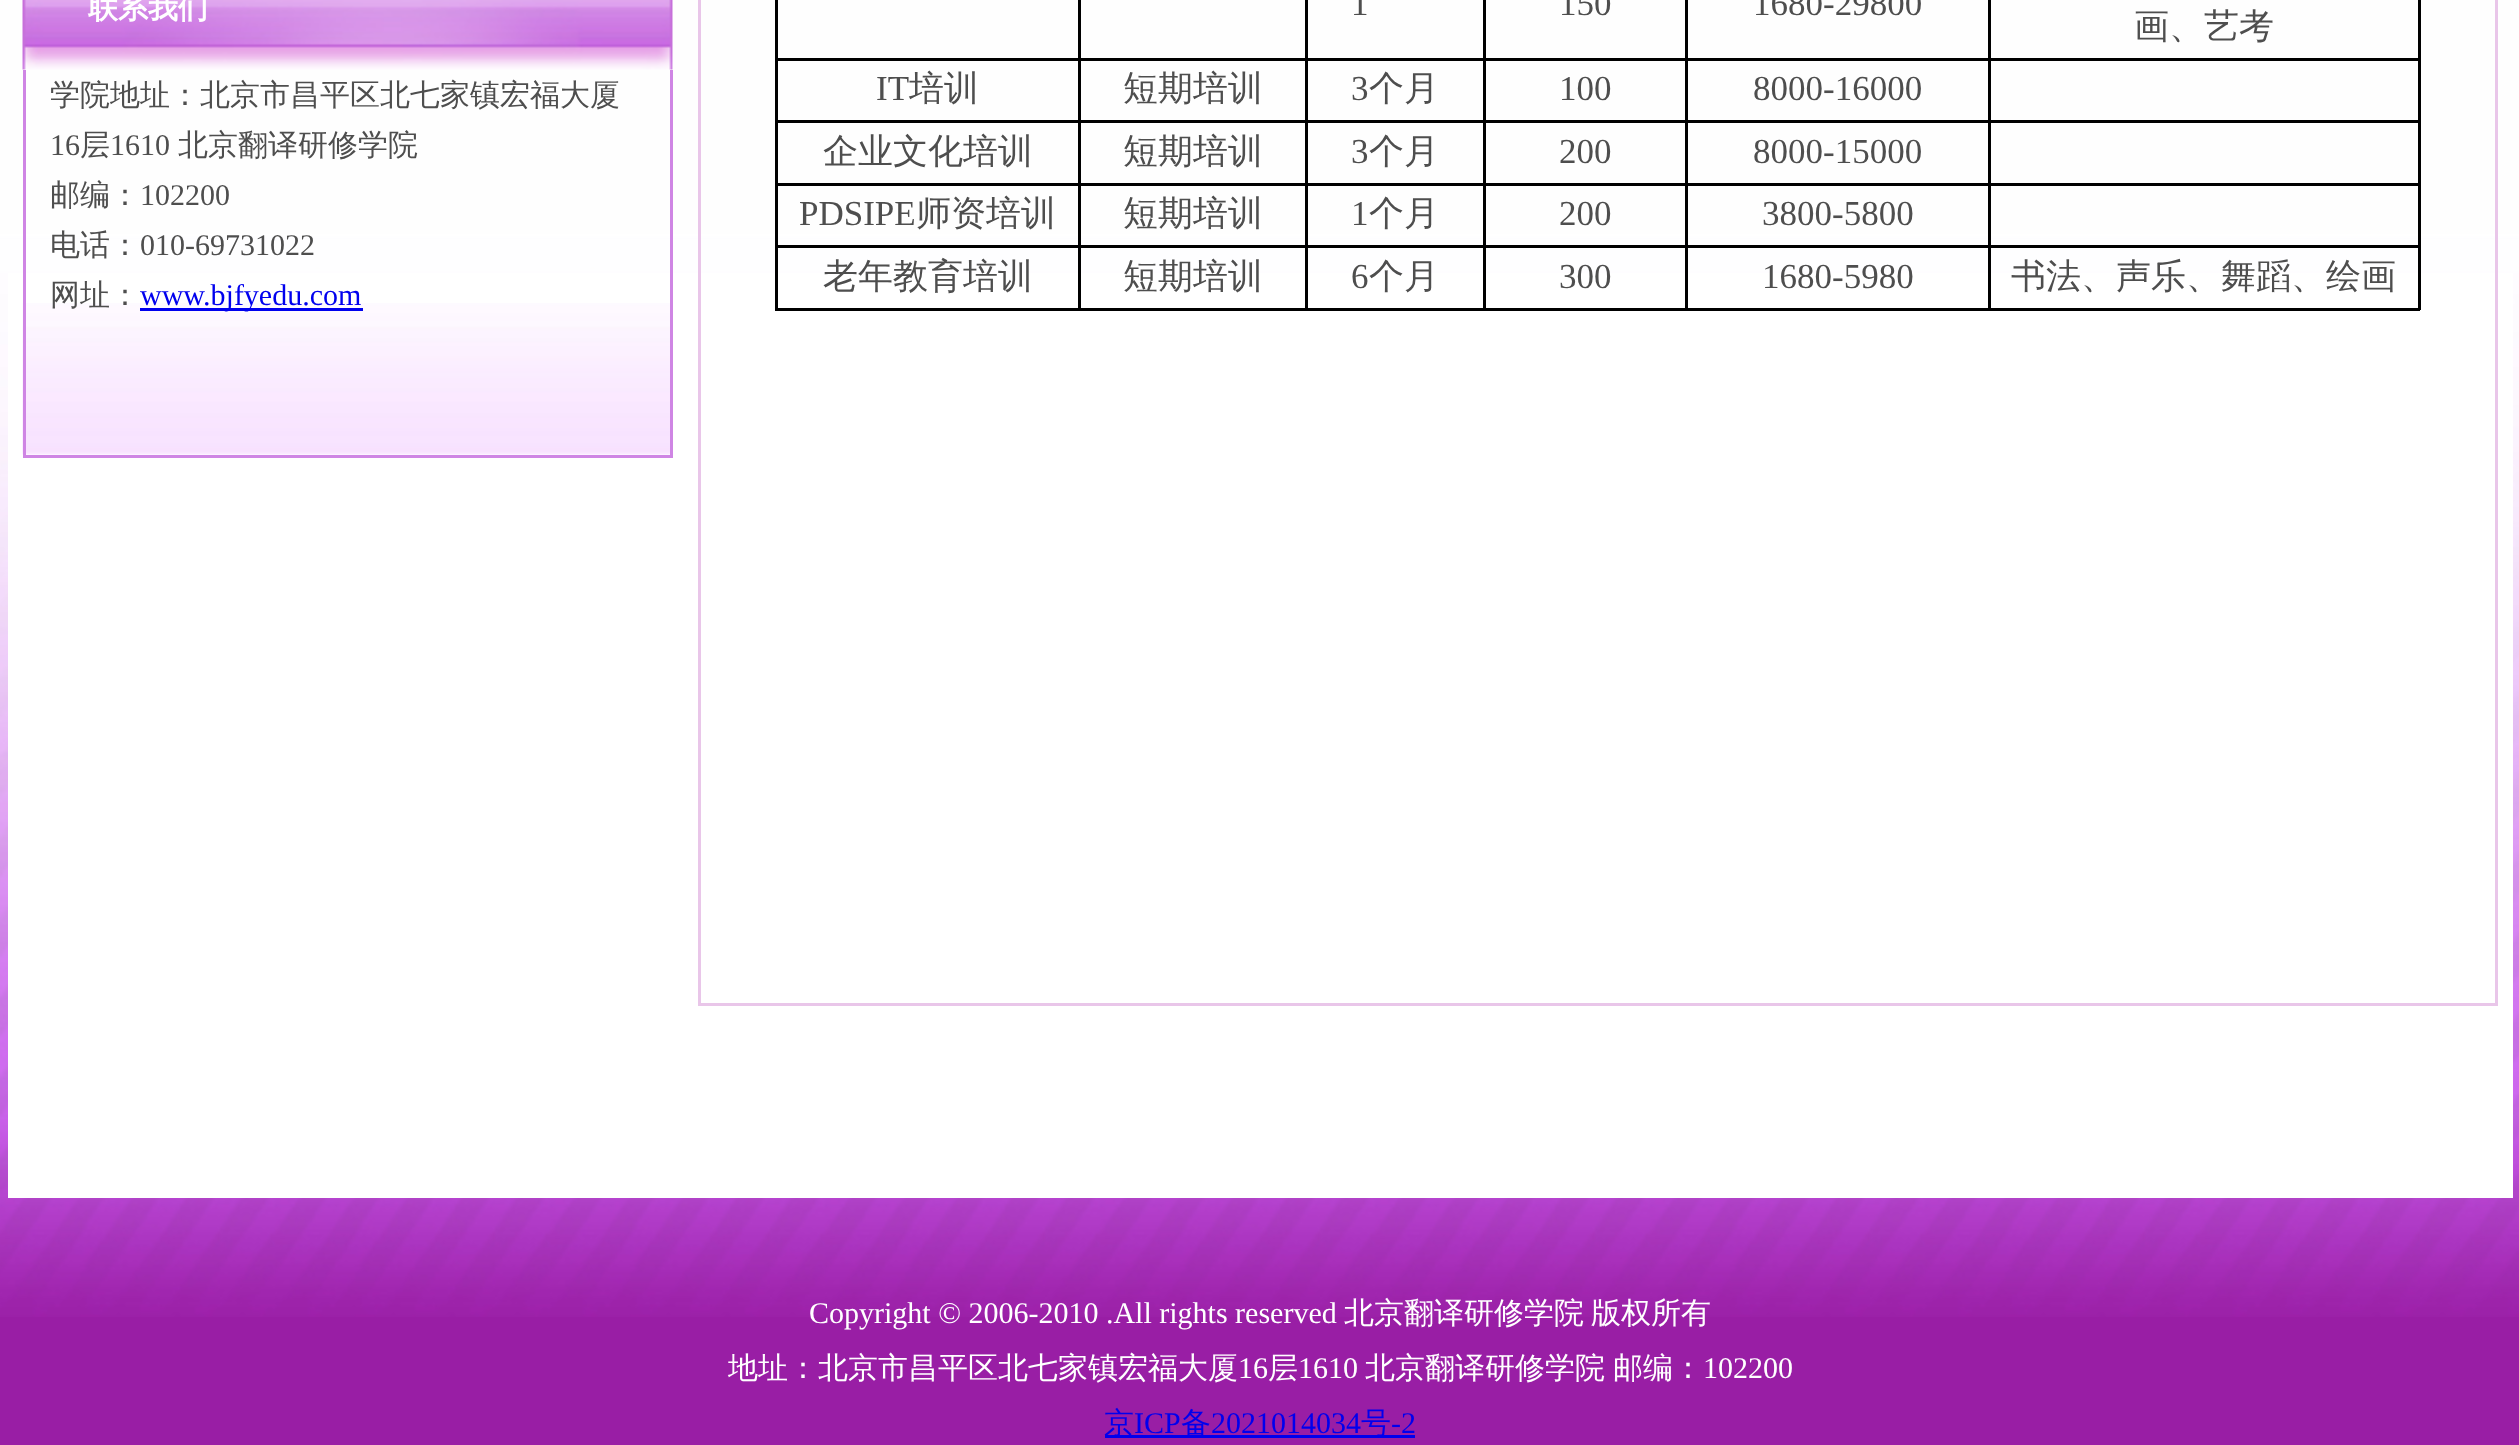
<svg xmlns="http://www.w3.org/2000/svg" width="2519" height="1445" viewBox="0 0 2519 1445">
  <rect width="100%" height="100%" fill="#991ea5"/>
  <image x="0" y="0" width="2519" height="1317" href="img/1.png"/>
  <path d="M8 273h2505v925H8z" fill="#fff"/>
  <image x="22" y="0" width="651" height="70" href="img/2.png"/>
  <image x="22" y="303" width="648" height="152" href="img/3.png"/>
  <path d="M670 70h3v388H670z" fill="#cf85e4"/>
  <path d="M23 455h650v3H23z" fill="#cf85e4"/>
  <path d="M23 70h3v388H23z" fill="#cf85e4"/>
  <path d="M140 308h223v3H140z" fill="#00e"/>
  <path d="M2495 0h3v1005H2495z" fill="#e9c6e9"/>
  <path d="M698 1003h1800v3H698z" fill="#e9c6e9"/>
  <path d="M698 0h3v1005H698z" fill="#e9c6e9"/>
  <path d="M2418 0h3v310H2418z" fill="#000"/>
  <path d="M775 308h1645v3H775z" fill="#000"/>
  <path d="M775 0h3v310H775z" fill="#000"/>
  <path d="M1988 58h430v3H1988z" fill="#000"/>
  <path d="M1988 120h430v3H1988z" fill="#000"/>
  <path d="M1988 183h430v3H1988z" fill="#000"/>
  <path d="M1988 245h430v3H1988z" fill="#000"/>
  <path d="M1988 245h3v63H1988z" fill="#000"/>
  <path d="M1685 245h305v3H1685z" fill="#000"/>
  <path d="M1988 183h3v65H1988z" fill="#000"/>
  <path d="M1685 183h305v3H1685z" fill="#000"/>
  <path d="M1988 120h3v65H1988z" fill="#000"/>
  <path d="M1685 120h305v3H1685z" fill="#000"/>
  <path d="M1988 58h3v65H1988z" fill="#000"/>
  <path d="M1685 58h305v3H1685z" fill="#000"/>
  <path d="M1685 245h3v63H1685z" fill="#000"/>
  <path d="M1483 245h205v3H1483z" fill="#000"/>
  <path d="M1685 183h3v65H1685z" fill="#000"/>
  <path d="M1483 183h205v3H1483z" fill="#000"/>
  <path d="M1685 120h3v65H1685z" fill="#000"/>
  <path d="M1483 120h205v3H1483z" fill="#000"/>
  <path d="M1685 58h3v65H1685z" fill="#000"/>
  <path d="M1483 58h205v3H1483z" fill="#000"/>
  <path d="M1483 245h3v63H1483z" fill="#000"/>
  <path d="M1305 245h180v3H1305z" fill="#000"/>
  <path d="M1483 183h3v65H1483z" fill="#000"/>
  <path d="M1305 183h180v3H1305z" fill="#000"/>
  <path d="M1483 120h3v65H1483z" fill="#000"/>
  <path d="M1305 120h180v3H1305z" fill="#000"/>
  <path d="M1483 58h3v65H1483z" fill="#000"/>
  <path d="M1305 58h180v3H1305z" fill="#000"/>
  <path d="M1305 245h3v63H1305z" fill="#000"/>
  <path d="M1078 245h230v3H1078z" fill="#000"/>
  <path d="M1305 183h3v65H1305z" fill="#000"/>
  <path d="M1078 183h230v3H1078z" fill="#000"/>
  <path d="M1305 120h3v65H1305z" fill="#000"/>
  <path d="M1078 120h230v3H1078z" fill="#000"/>
  <path d="M1305 58h3v65H1305z" fill="#000"/>
  <path d="M1078 58h230v3H1078z" fill="#000"/>
  <path d="M1078 245h3v63H1078z" fill="#000"/>
  <path d="M778 245h302v3H778z" fill="#000"/>
  <path d="M1078 183h3v65H1078z" fill="#000"/>
  <path d="M778 183h302v3H778z" fill="#000"/>
  <path d="M1078 120h3v65H1078z" fill="#000"/>
  <path d="M778 120h302v3H778z" fill="#000"/>
  <path d="M1078 58h3v65H1078z" fill="#000"/>
  <path d="M778 58h302v3H778z" fill="#000"/>
  <path d="M1078 0h3v60H1078z" fill="#000"/>
  <path d="M1305 0h3v60H1305z" fill="#000"/>
  <path d="M1483 0h3v60H1483z" fill="#000"/>
  <path d="M1685 0h3v60H1685z" fill="#000"/>
  <path d="M1988 0h3v60H1988z" fill="#000"/>
  <path d="M1105 1435h310v3H1105z" fill="#00e"/>
  <text x="88" y="18" font-family="WenQuanYi Zen Hei" font-size="30" font-weight="bold" fill="#fff">联系我们</text>
  <text x="50" y="105" font-family="WenQuanYi Zen Hei" font-size="30" font-weight="500" fill="#4e4e4e">学院地址：北京市昌平区北七家镇宏福大厦</text>
  <text x="50" y="155" font-family="Liberation Serif" font-size="30" fill="#4e4e4e">16</text>
  <text x="80" y="155" font-family="WenQuanYi Zen Hei" font-size="30" font-weight="500" fill="#4e4e4e">层</text>
  <text x="110" y="155" font-family="Liberation Serif" font-size="30" fill="#4e4e4e">1610</text>
  <g font-family="WenQuanYi Zen Hei" font-size="30" font-weight="500" fill="#4e4e4e">
    <text x="178" y="155">北京翻译研修学院</text>
    <text x="50" y="205">邮编：</text>
  </g>
  <text x="140" y="205" font-family="Liberation Serif" font-size="30" fill="#4e4e4e">102200</text>
  <text x="50" y="255" font-family="WenQuanYi Zen Hei" font-size="30" font-weight="500" fill="#4e4e4e">电话：</text>
  <text x="140" y="255" font-family="Liberation Serif" font-size="30" fill="#4e4e4e">010-69731022</text>
  <text x="50" y="305" font-family="WenQuanYi Zen Hei" font-size="30" font-weight="500" fill="#4e4e4e">网址：</text>
  <text x="140" y="305" font-family="Liberation Serif" font-size="30" fill="#00e">www.bjfyedu.com</text>
  <g font-family="Liberation Serif" font-size="35" fill="#4e4e4e">
    <text x="1351" y="15">1</text>
    <text x="1559" y="15">150</text>
    <text x="1753" y="15">1680-29800</text>
  </g>
  <text x="2134" y="38" font-family="WenQuanYi Zen Hei" font-size="35" font-weight="500" fill="#4e4e4e">画、艺考</text>
  <text x="876" y="100" font-family="Liberation Serif" font-size="35" fill="#4e4e4e">IT</text>
  <g font-family="WenQuanYi Zen Hei" font-size="35" font-weight="500" fill="#4e4e4e">
    <text x="909" y="100">培训</text>
    <text x="1123" y="100">短期培训</text>
  </g>
  <text x="1351" y="100" font-family="Liberation Serif" font-size="35" fill="#4e4e4e">3</text>
  <text x="1369" y="100" font-family="WenQuanYi Zen Hei" font-size="35" font-weight="500" fill="#4e4e4e">个月</text>
  <g font-family="Liberation Serif" font-size="35" fill="#4e4e4e">
    <text x="1559" y="100">100</text>
    <text x="1753" y="100">8000-16000</text>
  </g>
  <g font-family="WenQuanYi Zen Hei" font-size="35" font-weight="500" fill="#4e4e4e">
    <text x="823" y="163">企业文化培训</text>
    <text x="1123" y="163">短期培训</text>
  </g>
  <text x="1351" y="163" font-family="Liberation Serif" font-size="35" fill="#4e4e4e">3</text>
  <text x="1369" y="163" font-family="WenQuanYi Zen Hei" font-size="35" font-weight="500" fill="#4e4e4e">个月</text>
  <g font-family="Liberation Serif" font-size="35" fill="#4e4e4e">
    <text x="1559" y="163">200</text>
    <text x="1753" y="163">8000-15000</text>
    <text x="799" y="225">PDSIPE</text>
  </g>
  <g font-family="WenQuanYi Zen Hei" font-size="35" font-weight="500" fill="#4e4e4e">
    <text x="916" y="225">师资培训</text>
    <text x="1123" y="225">短期培训</text>
  </g>
  <text x="1351" y="225" font-family="Liberation Serif" font-size="35" fill="#4e4e4e">1</text>
  <text x="1369" y="225" font-family="WenQuanYi Zen Hei" font-size="35" font-weight="500" fill="#4e4e4e">个月</text>
  <g font-family="Liberation Serif" font-size="35" fill="#4e4e4e">
    <text x="1559" y="225">200</text>
    <text x="1762" y="225">3800-5800</text>
  </g>
  <g font-family="WenQuanYi Zen Hei" font-size="35" font-weight="500" fill="#4e4e4e">
    <text x="823" y="288">老年教育培训</text>
    <text x="1123" y="288">短期培训</text>
  </g>
  <text x="1351" y="288" font-family="Liberation Serif" font-size="35" fill="#4e4e4e">6</text>
  <text x="1369" y="288" font-family="WenQuanYi Zen Hei" font-size="35" font-weight="500" fill="#4e4e4e">个月</text>
  <g font-family="Liberation Serif" font-size="35" fill="#4e4e4e">
    <text x="1559" y="288">300</text>
    <text x="1762" y="288">1680-5980</text>
  </g>
  <text x="2011" y="288" font-family="WenQuanYi Zen Hei" font-size="35" font-weight="500" fill="#4e4e4e">书法、声乐、舞蹈、绘画</text>
  <text x="809" y="1323" font-family="Liberation Serif" font-size="30" fill="#fff">Copyright © 2006-2010 .All rights reserved</text>
  <g font-family="WenQuanYi Zen Hei" font-size="30" font-weight="500" fill="#fff">
    <text x="1344" y="1323">北京翻译研修学院</text>
    <text x="1591" y="1323">版权所有</text>
    <text x="728" y="1378">地址：北京市昌平区北七家镇宏福大厦</text>
  </g>
  <text x="1238" y="1378" font-family="Liberation Serif" font-size="30" fill="#fff">16</text>
  <text x="1268" y="1378" font-family="WenQuanYi Zen Hei" font-size="30" font-weight="500" fill="#fff">层</text>
  <text x="1298" y="1378" font-family="Liberation Serif" font-size="30" fill="#fff">1610</text>
  <text x="1365" y="1378" word-spacing="-1" font-family="WenQuanYi Zen Hei" font-size="30" font-weight="500" fill="#fff">北京翻译研修学院 邮编：</text>
  <text x="1703" y="1378" font-family="Liberation Serif" font-size="30" fill="#fff">102200</text>
  <text x="1104" y="1433" font-family="WenQuanYi Zen Hei" font-size="30" font-weight="500" fill="#00e">京</text>
  <text x="1134" y="1433" font-family="Liberation Serif" font-size="30" fill="#00e">ICP</text>
  <text x="1181" y="1433" font-family="WenQuanYi Zen Hei" font-size="30" font-weight="500" fill="#00e">备</text>
  <text x="1211" y="1433" font-family="Liberation Serif" font-size="30" fill="#00e">2021014034</text>
  <text x="1361" y="1433" font-family="WenQuanYi Zen Hei" font-size="30" font-weight="500" fill="#00e">号</text>
  <text x="1391" y="1433" font-family="Liberation Serif" font-size="30" fill="#00e">-2</text>
</svg>
